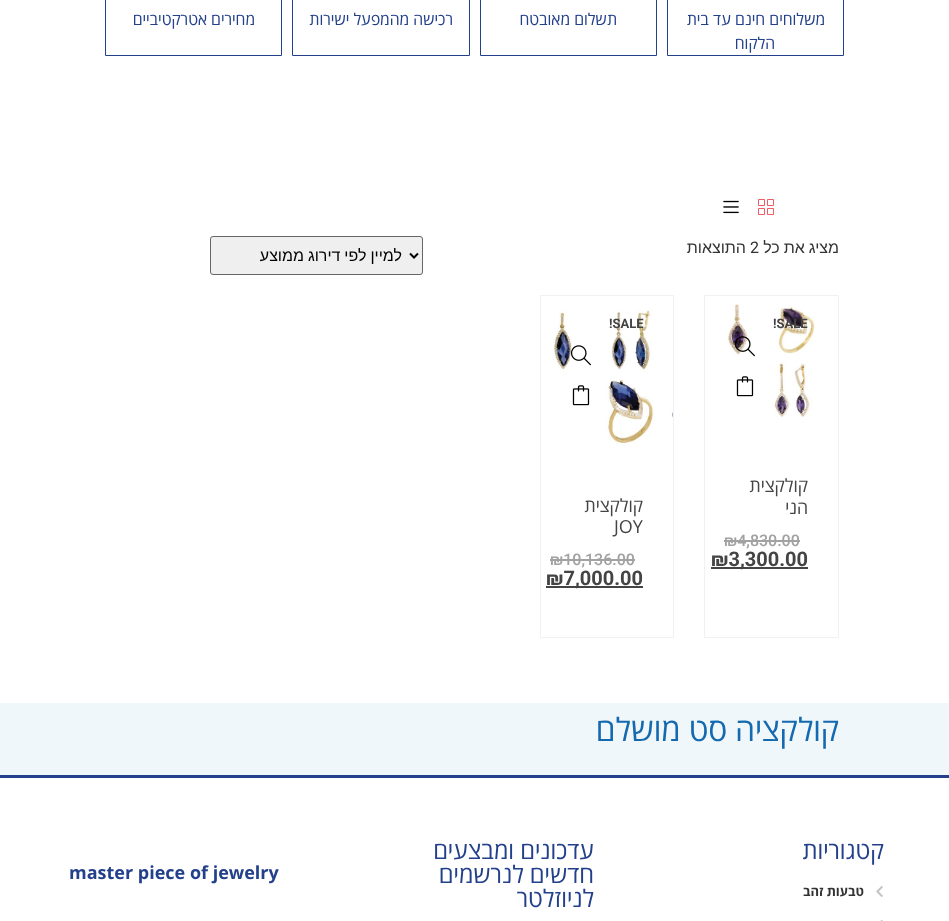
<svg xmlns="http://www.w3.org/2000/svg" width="949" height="921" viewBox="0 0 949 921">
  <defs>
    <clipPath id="clip1"><path d="M243 245h159v21H243z"/></clipPath>
  </defs>
  <rect width="100%" height="100%" fill="#fff"/>
  <path d="M667.5 -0.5h176v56H667.5z" fill="none" stroke="#23408b"/>
  <path d="M480.5 -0.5h176v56H480.5z" fill="none" stroke="#23408b"/>
  <path d="M292.5 -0.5h177v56H292.5z" fill="none" stroke="#23408b"/>
  <path d="M105.5 -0.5h176v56H105.5z" fill="none" stroke="#23408b"/>
  <image x="758" y="199" width="16" height="16" href="img/1.png"/>
  <image x="723" y="200" width="16" height="14" href="img/2.png"/>
  <rect x="210.5" y="236.5" width="212" height="38" rx="2.5" fill="#efefef" stroke="#666"/>
  <path d="M410 253.5L414 257.5L418 253.5" fill="none" stroke="#000" stroke-width="2"/>
  <path d="M704.5 295.5h134v342H704.5z" fill="none" stroke="#f1f1f1"/>
  <image x="727" y="304" width="88" height="113" href="img/3.png"/>
  <image x="735" y="336" width="20" height="21" href="img/4.png"/>
  <image x="736" y="376" width="18" height="21" href="img/5.png"/>
  <path d="M724 540h76v2H724z" fill="#a2a2a2"/>
  <path d="M711 567h97v2H711z" fill="#444"/>
  <path d="M540.5 295.5h133v342H540.5z" fill="none" stroke="#f1f1f1"/>
  <image x="553" y="309" width="120" height="135" href="img/6.png"/>
  <image x="571" y="345" width="20" height="21" href="img/7.png"/>
  <image x="572" y="385" width="18" height="21" href="img/5.png"/>
  <path d="M550 559h85v2H550z" fill="#a2a2a2"/>
  <path d="M546 586h97v2H546z" fill="#444"/>
  <path d="M0 703h949v72H0z" fill="#eff7fb"/>
  <path d="M0 775h949v3H0z" fill="#23408b"/>
  <image x="876" y="886" width="7" height="11" href="img/8.png"/>
  <image x="880" y="920" width="3" height="1" href="img/9.png"/>
  <g font-family="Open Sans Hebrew" font-size="16" direction="rtl" fill="#23408b">
    <text x="825" y="25">משלוחים חינם עד בית</text>
    <text x="775" y="49">הלקוח</text>
    <text x="617" y="25">תשלום מאובטח</text>
    <text x="453" y="25">רכישה מהמפעל ישירות</text>
    <text x="255" y="25">מחירים אטרקטיביים</text>
  </g>
  <text x="839" y="253" word-spacing="-0.5" font-family="Liberation Sans" font-size="16" direction="rtl" fill="#333">מציג את כל</text>
  <text x="750" y="253" font-family="Roboto" font-size="16" fill="#333">2</text>
  <text x="746" y="253" font-family="Liberation Sans" font-size="16" direction="rtl" fill="#333">התוצאות</text>
  <g clip-path="url(#clip1)">
    <text x="402" y="261" word-spacing="-0.5" font-family="Liberation Sans" font-size="16" direction="rtl" fill="#000">למיין לפי דירוג ממוצע</text>
  </g>
  <text x="773" y="328" font-family="Roboto" font-size="13" font-weight="bold" fill="#444">!SALE</text>
  <g font-family="Open Sans Hebrew" font-size="18" direction="rtl" fill="#444">
    <text x="808" y="492">קולקצית</text>
    <text x="808" y="514">הני</text>
  </g>
  <text x="724" y="546" font-family="Roboto" font-size="16" font-weight="500" fill="#a2a2a2">₪4,830.00</text>
  <text x="711" y="566" font-family="Roboto" font-size="20" font-weight="bold" fill="#444">₪3,300.00</text>
  <text x="609" y="328" font-family="Roboto" font-size="13" font-weight="bold" fill="#444">!SALE</text>
  <text x="643" y="512" font-family="Open Sans Hebrew" font-size="18" direction="rtl" fill="#444">קולקצית</text>
  <text x="614" y="533" font-family="Open Sans Hebrew" font-size="18" fill="#444">JOY</text>
  <text x="550" y="565" font-family="Roboto" font-size="16" font-weight="500" fill="#a2a2a2">₪10,136.00</text>
  <text x="546" y="585" font-family="Roboto" font-size="20" font-weight="bold" fill="#444">₪7,000.00</text>
  <text x="839" y="741" font-family="Open Sans Hebrew" font-size="32" direction="rtl" fill="#1569ae">קולקציה סט מושלם</text>
  <text x="884" y="859" font-family="Open Sans Hebrew" font-size="24" direction="rtl" fill="#23408b">קטגוריות</text>
  <text x="864" y="896" font-family="Open Sans Hebrew" font-size="13" font-weight="bold" direction="rtl" fill="#333">טבעות זהב</text>
  <g font-family="Open Sans Hebrew" font-size="24" direction="rtl" fill="#23408b">
    <text x="594" y="859">עדכונים ומבצעים</text>
    <text x="594" y="883">חדשים לנרשמים</text>
    <text x="594" y="907">לניוזלטר</text>
  </g>
  <text x="69" y="879" font-family="Open Sans Hebrew" font-size="18" font-weight="bold" fill="#23408b">master piece of jewelry</text>
</svg>
